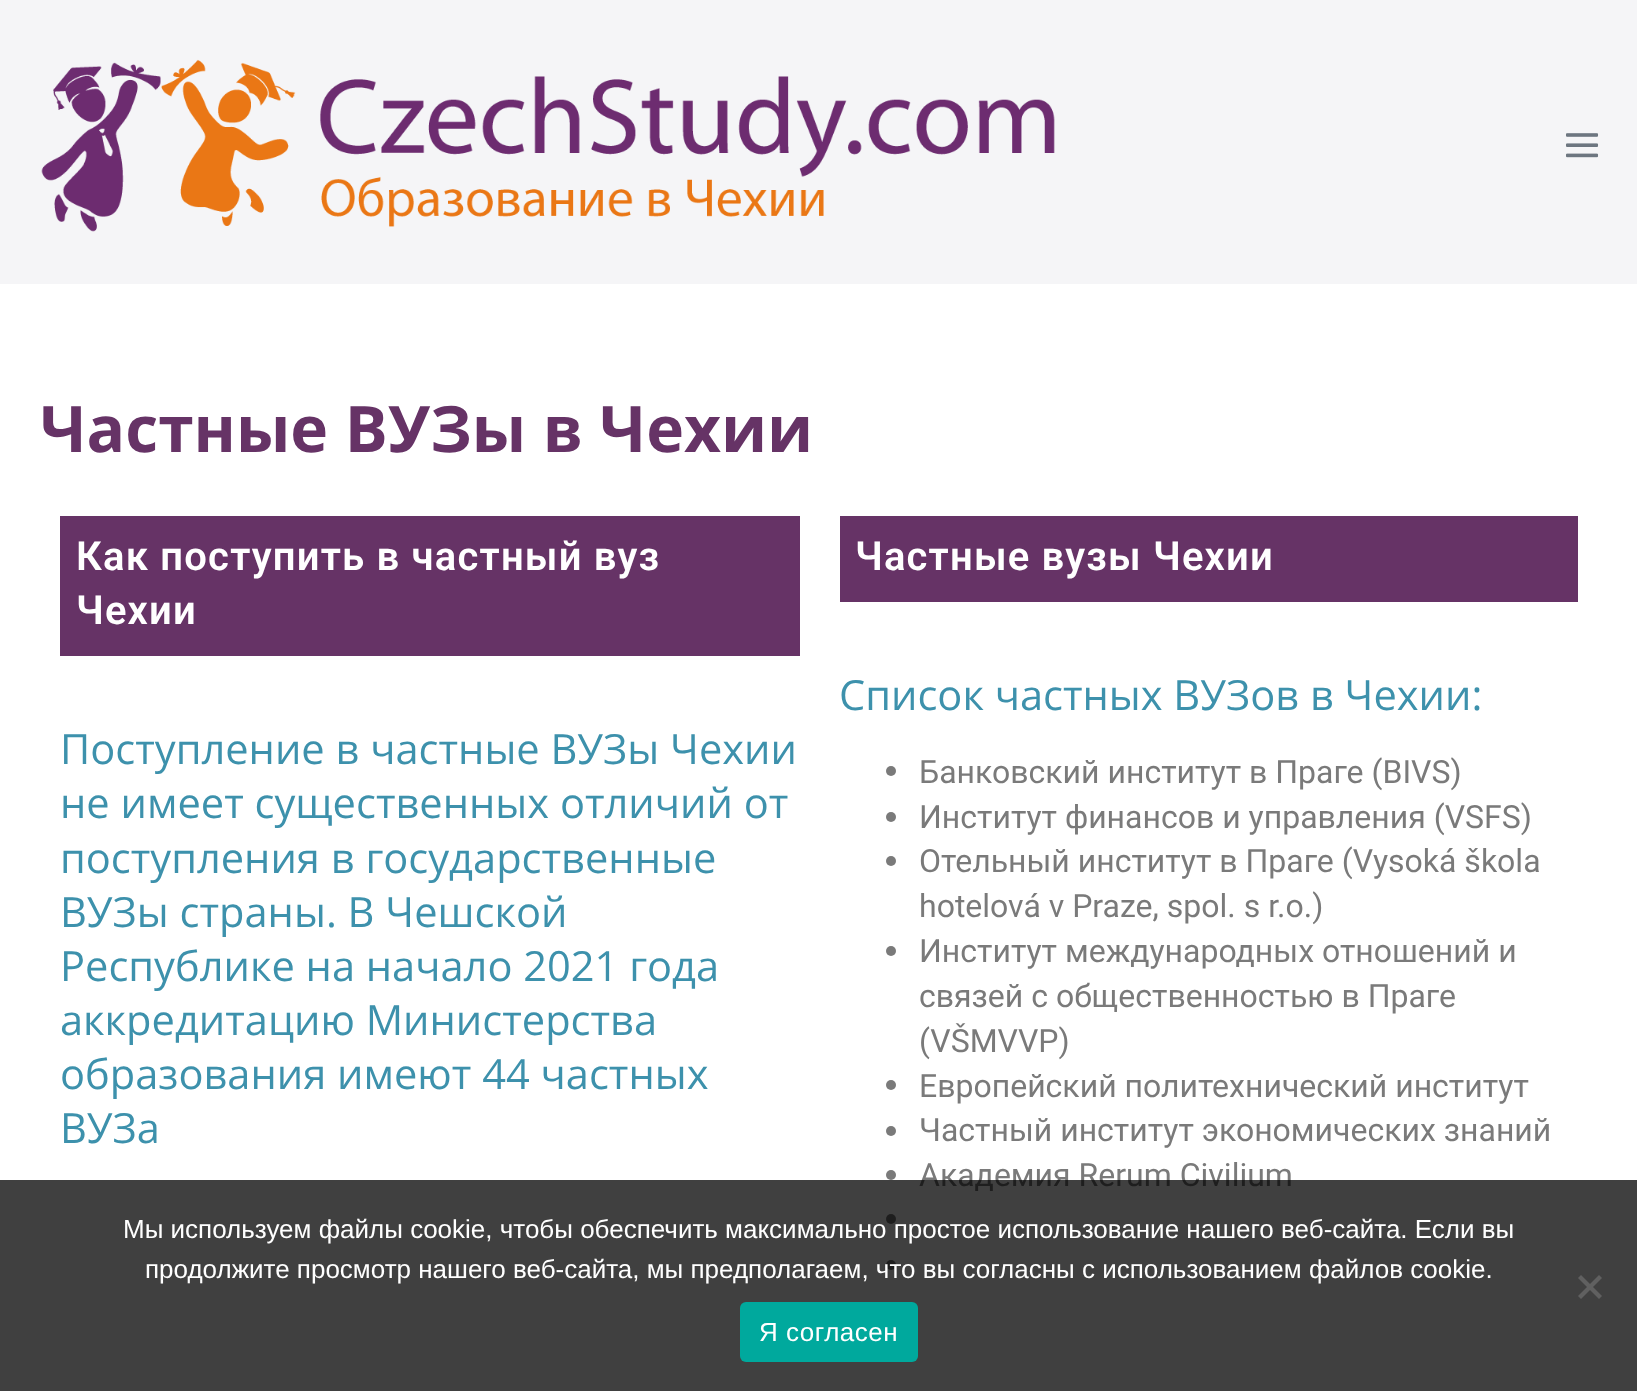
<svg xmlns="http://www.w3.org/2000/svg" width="1637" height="1391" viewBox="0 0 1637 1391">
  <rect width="100%" height="100%" fill="#fff"/>
  <path d="M0 0h1637v284H0z" fill="#f5f5f7"/>
  <image x="41" y="59" width="1014" height="173" href="img/1.png"/>
  <image x="1566" y="133" width="33" height="25" href="img/2.png"/>
  <path d="M60 516h740v140H60z" fill="#636"/>
  <path d="M840 516h738v86H840z" fill="#636"/>
  <circle cx="891" cy="771" r="5" fill="#7a7a7a"/>
  <circle cx="891" cy="817" r="5" fill="#7a7a7a"/>
  <circle cx="891" cy="861" r="5" fill="#7a7a7a"/>
  <circle cx="891" cy="951" r="5" fill="#7a7a7a"/>
  <circle cx="891" cy="1085" r="5" fill="#7a7a7a"/>
  <circle cx="891" cy="1131" r="5" fill="#7a7a7a"/>
  <circle cx="891" cy="1175" r="5" fill="#7a7a7a"/>
  <circle cx="891" cy="1219" r="5" fill="#7a7a7a"/>
  <circle cx="891" cy="1265" r="5" fill="#7a7a7a"/>
  <text x="40" y="452" font-family="Open Sans" font-size="64" font-weight="bold" fill="#636">Частные ВУЗы в Чехии</text>
  <g font-family="Roboto" font-size="40" font-weight="600" letter-spacing="1.2" fill="#fff">
    <text x="76" y="570">Как поступить в частный вуз</text>
    <text x="76" y="624">Чехии</text>
  </g>
  <g font-family="Open Sans" font-size="41.6" fill="#3d91ac">
    <text x="60" y="764">Поступление в частные ВУЗы Чехии</text>
    <text x="60" y="818">не имеет существенных отличий от</text>
    <text x="60" y="873">поступления в государственные</text>
    <text x="60" y="927">ВУЗы страны. В Чешской</text>
    <text x="60" y="981">Республике на начало 2021 года</text>
    <text x="60" y="1035">аккредитацию Министерства</text>
    <text x="60" y="1089">образования имеют 44 частных</text>
    <text x="60" y="1143">ВУЗа</text>
  </g>
  <text x="855" y="570" font-family="Roboto" font-size="40" font-weight="600" letter-spacing="1.2" fill="#fff">Частные вузы Чехии</text>
  <text x="839" y="710" font-family="Open Sans" font-size="41.6" fill="#3d91ac">Список частных ВУЗов в Чехии:</text>
  <g font-family="Roboto" font-size="32" fill="#7a7a7a">
    <text x="919" y="783">Банковский институт в Праге (BIVS)</text>
    <text x="919" y="828">Институт финансов и управления (VSFS)</text>
    <text x="919" y="872">Отельный институт в Праге (Vysoká škola</text>
    <text x="919" y="917">hotelová v Praze, spol. s r.o.)</text>
    <text x="919" y="962">Институт международных отношений и</text>
    <text x="919" y="1007">связей с общественностью в Праге</text>
    <text x="919" y="1052">(VŠMVVP)</text>
    <text x="919" y="1097">Европейский политехнический институт</text>
    <text x="919" y="1141">Частный институт экономических знаний</text>
    <text x="919" y="1186">Академия Rerum Civilium</text>
  </g>
  <path d="M0 1180h1637v211H0z" fill="#000000bf"/>
  <g font-family="Liberation Sans" font-size="26" fill="#fff">
    <text x="123" y="1238">Мы используем файлы cookie, чтобы обеспечить максимально простое использование нашего веб-сайта. Если вы</text>
    <text x="145" y="1278">продолжите просмотр нашего веб-сайта, мы предполагаем, что вы согласны с использованием файлов cookie.</text>
  </g>
  <path d="M1599 1275L1602 1278L1581 1299L1578 1296Z" fill="#606060"/>
  <path d="M1578 1278L1581 1275L1602 1296L1599 1299Z" fill="#606060"/>
  <rect x="740" y="1302" width="178" height="60" rx="6" fill="#00a99d"/>
  <text x="759" y="1341" font-family="Liberation Sans" font-size="26" letter-spacing="0.5" fill="#fff">Я согласен</text>
</svg>
